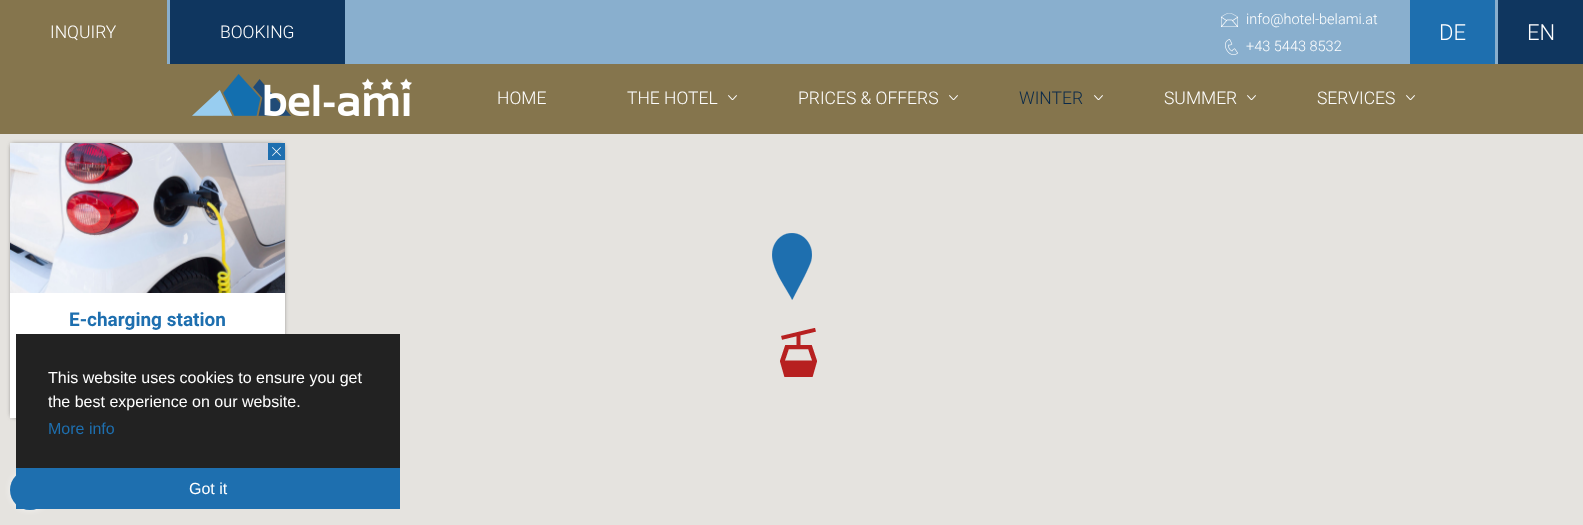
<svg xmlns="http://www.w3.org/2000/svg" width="1583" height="525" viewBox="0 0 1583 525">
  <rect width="100%" height="100%" fill="#e5e3df"/>
  <path d="M167 0h1331v64H167z" fill="#89afce"/>
  <path d="M0 0h167v64H0z" fill="#85754d"/>
  <path d="M170 0h175v64H170z" fill="#0f365f"/>
  <path d="M12 145h271v271H12z" fill="#333" filter="blur(2.5px)"/>
  <path d="M10 293h275v125H10z" fill="#fff"/>
  <image x="10" y="143" width="275" height="150" href="img/1.png"/>
  <image x="268" y="143" width="17" height="17" href="img/2.png"/>
  <image x="1221" y="13" width="17" height="14" href="img/3.png"/>
  <image x="1225" y="39" width="13" height="16" href="img/4.png"/>
  <path d="M1410 0h85v64H1410z" fill="#1e6faf"/>
  <path d="M1498 0h85v64H1498z" fill="#0f365f"/>
  <path d="M0 64h1583v70H0z" fill="#85754d"/>
  <image x="192" y="74" width="220" height="42" href="img/5.png"/>
  <image x="728" y="95" width="9" height="5" href="img/6.png"/>
  <image x="949" y="95" width="9" height="5" href="img/6.png"/>
  <image x="1094" y="95" width="9" height="5" href="img/6.png"/>
  <image x="1247" y="95" width="9" height="5" href="img/6.png"/>
  <image x="1406" y="95" width="9" height="5" href="img/6.png"/>
  <image x="772" y="233" width="40" height="67" href="img/7.png"/>
  <image x="780" y="328" width="37" height="49" href="img/8.png"/>
  <rect x="12" y="472" width="36" height="36" rx="18" fill="#fff" filter="blur(4px)"/>
  <circle cx="30" cy="490" r="20" fill="#1e6faf"/>
  <path d="M16 334h384v134H16z" fill="#222"/>
  <path d="M16 468h384v41H16z" fill="#1e6faf"/>
  <g font-family="Roboto" font-size="17.5" font-weight="300" fill="#fff">
    <text x="50" y="38">INQUIRY</text>
    <text x="220" y="38">BOOKING</text>
  </g>
  <text x="69" y="326" font-family="Roboto" font-size="19" font-weight="bold" fill="#1e6faf">E-charging station</text>
  <g font-family="Roboto" font-size="14.5" font-weight="300" fill="#fff">
    <text x="1246" y="24">info@hotel-belami.at</text>
    <text x="1246" y="51">+43 5443 8532</text>
  </g>
  <g font-family="Roboto" font-size="22" font-weight="300" fill="#fff">
    <text x="1439" y="40">DE</text>
    <text x="1527" y="40">EN</text>
  </g>
  <g font-family="Roboto" font-size="17.5" font-weight="300" fill="#fff">
    <text x="497" y="104">HOME</text>
    <text x="627" y="104">THE HOTEL</text>
    <text x="798" y="104">PRICES &amp; OFFERS</text>
  </g>
  <text x="1019" y="104" font-family="Roboto" font-size="17.5" font-weight="300" fill="#09294a">WINTER</text>
  <g font-family="Roboto" font-size="17.5" font-weight="300" fill="#fff">
    <text x="1164" y="104">SUMMER</text>
    <text x="1317" y="104">SERVICES</text>
  </g>
  <g font-family="Liberation Sans" font-size="16" fill="#fff">
    <text x="48" y="383">This website uses cookies to ensure you get</text>
    <text x="48" y="407">the best experience on our website.</text>
  </g>
  <text x="48" y="434" font-family="Liberation Sans" font-size="16" fill="#1e6faf">More info</text>
  <text x="189" y="494" font-family="Liberation Sans" font-size="16" fill="#fff">Got it</text>
</svg>
